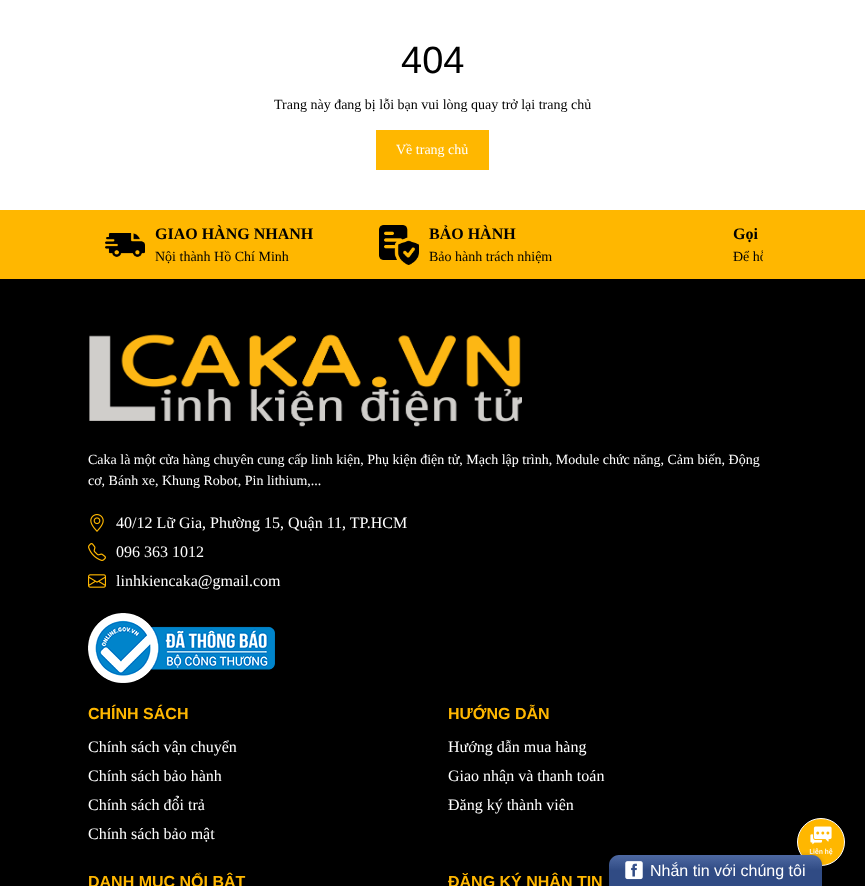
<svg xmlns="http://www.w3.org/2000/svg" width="865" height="886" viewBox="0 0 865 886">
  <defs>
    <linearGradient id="g1" gradientUnits="userSpaceOnUse" x1="716" y1="855" x2="716" y2="886"><stop offset="0" stop-color="#4e69a2"/><stop offset="0.5" stop-color="#304b84"/></linearGradient>
    <clipPath id="clip1"><path d="M103 220h660v49H103z"/></clipPath>
  </defs>
  <rect width="100%" height="100%" fill="#fff"/>
  <path d="M376 130h113v40H376z" fill="#ffb700"/>
  <path d="M0 210h865v69H0z" fill="#ffb700"/>
  <image x="105" y="233" width="40" height="24" href="img/1.png"/>
  <image x="379" y="225" width="40" height="40" href="img/2.png"/>
  <path d="M0 279h865v607H0z" fill="#000"/>
  <image x="89" y="334" width="433" height="93" href="img/3.png"/>
  <image x="90" y="514" width="14" height="18" href="img/4.png"/>
  <image x="88" y="543" width="18" height="18" href="img/5.png"/>
  <image x="88" y="574" width="18" height="14" href="img/6.png"/>
  <image x="88" y="613" width="187" height="70" href="img/7.png"/>
  <circle cx="821" cy="842" r="23.5" fill="#ffb700" stroke="#fff"/>
  <image x="809" y="826" width="24" height="30" href="img/8.png"/>
  <rect x="609" y="855" width="213" height="31" rx="10" fill="#00000033" filter="blur(2.5px)"/>
  <path d="M619 855H812C817.5 855 822 859.5 822 865V886H609V865C609 859.5 613.5 855 619 855Z" fill="url(#g1)"/>
  <image x="625" y="861" width="18" height="19" href="img/9.png"/>
  <text x="401" y="73" font-family="Liberation Sans" font-size="38" fill="#000">404</text>
  <text x="274" y="109" font-family="Liberation Serif" font-size="14" fill="#000">Trang này đang bị lỗi bạn vui lòng quay trở lại trang chủ</text>
  <text x="396" y="154" font-family="Liberation Serif" font-size="14" fill="#fff">Về trang chủ</text>
  <text x="155" y="239" font-family="Liberation Serif" font-size="16" font-weight="bold" fill="#000">GIAO HÀNG NHANH</text>
  <text x="155" y="261" font-family="Liberation Serif" font-size="14" fill="#000">Nội thành Hồ Chí Minh</text>
  <text x="429" y="239" font-family="Liberation Serif" font-size="16" font-weight="bold" fill="#000">BẢO HÀNH</text>
  <text x="429" y="261" font-family="Liberation Serif" font-size="14" fill="#000">Bảo hành trách nhiệm</text>
  <text x="733" y="239" font-family="Liberation Serif" font-size="16" font-weight="bold" fill="#000">Gọi</text>
  <g clip-path="url(#clip1)">
    <text x="733" y="261" font-family="Liberation Serif" font-size="14" fill="#000">Để hỗ</text>
  </g>
  <g font-family="Liberation Serif" font-size="14" fill="#fff">
    <text x="88" y="464">Caka là một cửa hàng chuyên cung cấp linh kiện, Phụ kiện điện tử, Mạch lập trình, Module chức năng, Cảm biến, Động</text>
    <text x="88" y="485">cơ, Bánh xe, Khung Robot, Pin lithium,...</text>
  </g>
  <g font-family="Liberation Serif" font-size="16" fill="#fff">
    <text x="116" y="528">40/12 Lữ Gia, Phường 15, Quận 11, TP.HCM</text>
    <text x="116" y="557">096 363 1012</text>
    <text x="116" y="586">linhkiencaka@gmail.com</text>
  </g>
  <text x="88" y="719" font-family="Liberation Sans" font-size="16" font-weight="bold" fill="#ffb700">CHÍNH SÁCH</text>
  <g font-family="Liberation Serif" font-size="16" fill="#fff">
    <text x="88" y="752">Chính sách vận chuyển</text>
    <text x="88" y="781">Chính sách bảo hành</text>
    <text x="88" y="810">Chính sách đổi trả</text>
    <text x="88" y="839">Chính sách bảo mật</text>
  </g>
  <text x="448" y="719" font-family="Liberation Sans" font-size="16" font-weight="bold" fill="#ffb700">HƯỚNG DẪN</text>
  <g font-family="Liberation Serif" font-size="16" fill="#fff">
    <text x="448" y="752">Hướng dẫn mua hàng</text>
    <text x="448" y="781">Giao nhận và thanh toán</text>
    <text x="448" y="810">Đăng ký thành viên</text>
  </g>
  <g font-family="Liberation Sans" font-size="16" font-weight="bold" fill="#ffb700">
    <text x="88" y="887">DANH MỤC NỔI BẬT</text>
    <text x="448" y="887">ĐĂNG KÝ NHẬN TIN</text>
  </g>
  <text x="650" y="876" font-family="Liberation Sans" font-size="16" fill="#fff">Nhắn tin với chúng tôi</text>
</svg>
